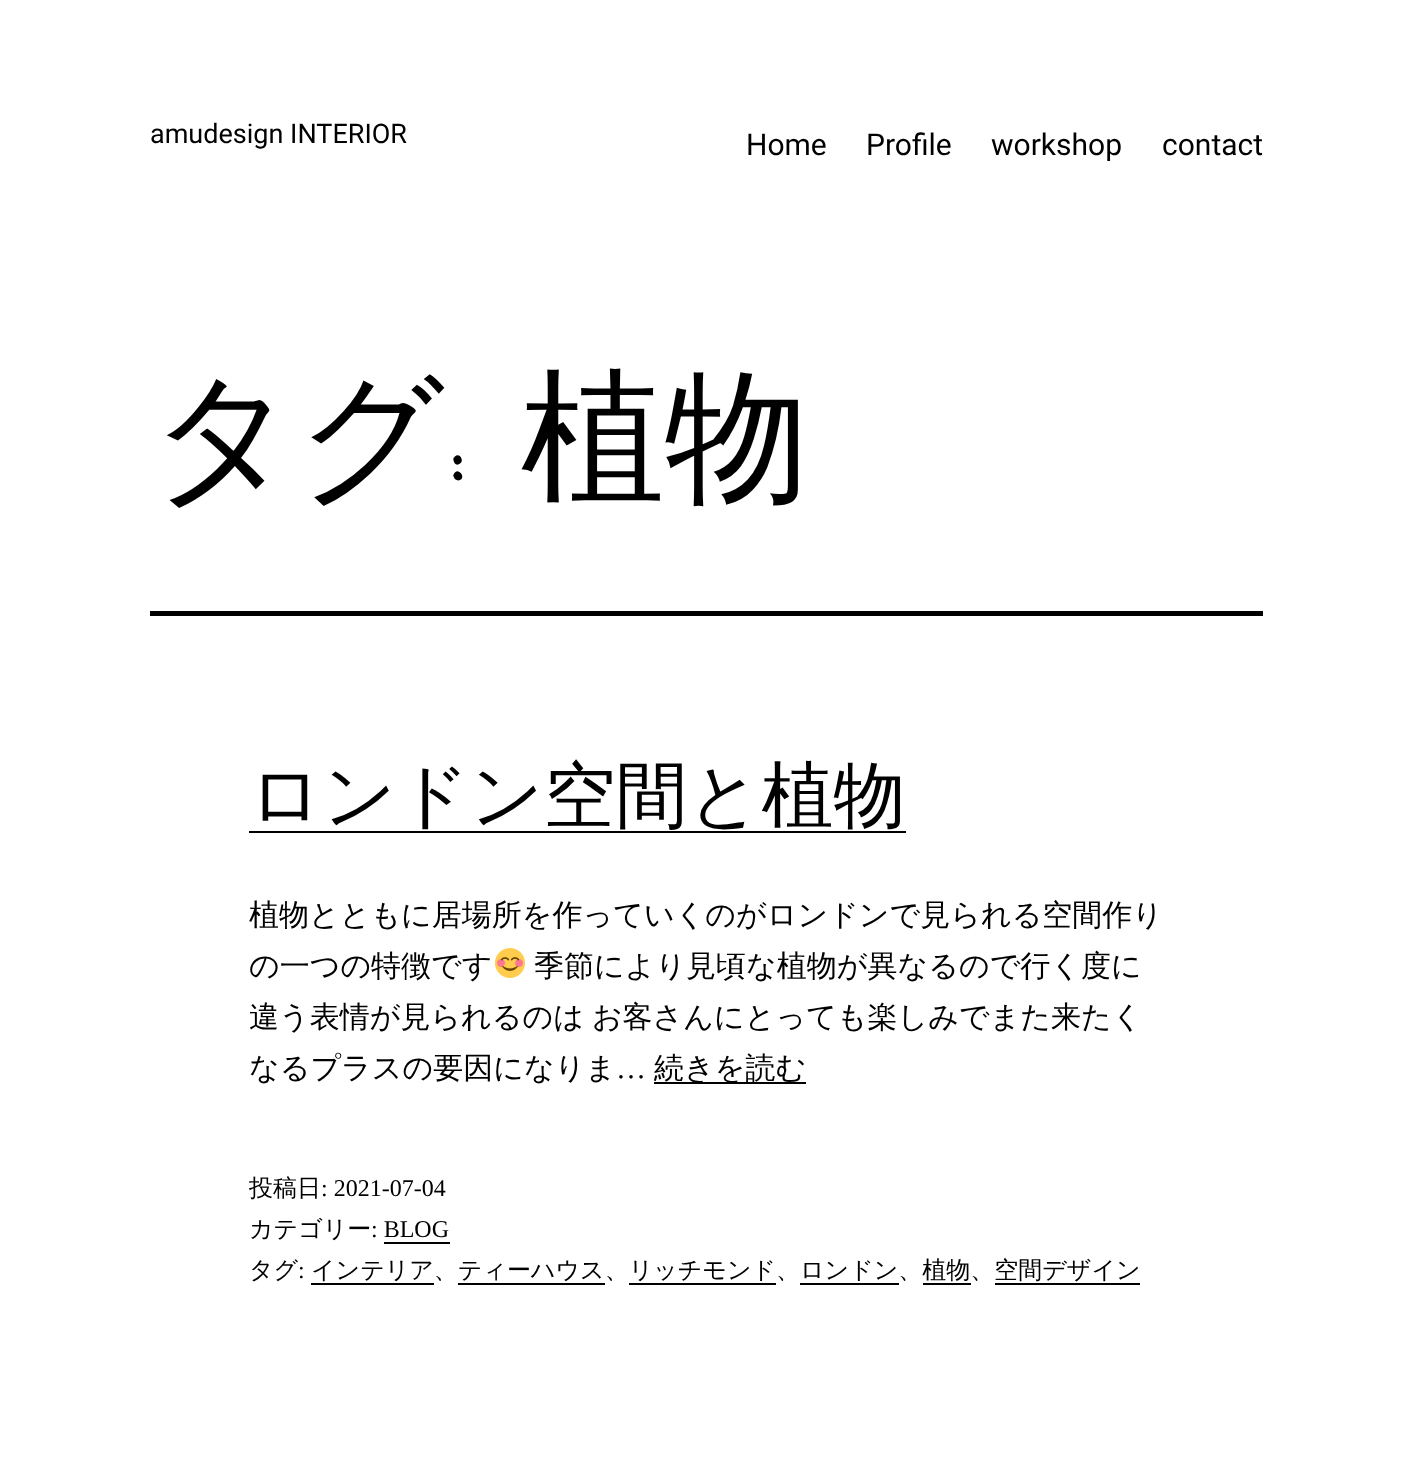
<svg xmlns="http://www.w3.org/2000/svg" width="1412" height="1462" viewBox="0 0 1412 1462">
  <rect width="100%" height="100%" fill="#fff"/>
  <path d="M150 611h1113v5H150z" fill="#000"/>
  <path d="M249 831h657v2H249z" fill="#000"/>
  <image x="495" y="948" width="30" height="30" href="img/1.png"/>
  <path d="M654 1082h152v2H654z" fill="#000"/>
  <path d="M384 1242h66v2H384z" fill="#000"/>
  <path d="M311 1283h123v2H311z" fill="#000"/>
  <path d="M458 1283h147v2H458z" fill="#000"/>
  <path d="M629 1283h147v2H629z" fill="#000"/>
  <path d="M800 1283h99v2H800z" fill="#000"/>
  <path d="M923 1283h48v2H923z" fill="#000"/>
  <path d="M995 1283h145v2H995z" fill="#000"/>
  <text x="150" y="143" font-family="Roboto" font-size="27" fill="#000">amudesign INTERIOR</text>
  <g font-family="Roboto" font-size="30" fill="#000">
    <text x="746" y="155">Home</text>
    <text x="866" y="155">Profile</text>
    <text x="991" y="155">workshop</text>
    <text x="1162" y="155">contact</text>
  </g>
  <text x="150" y="487" font-family="WenQuanYi Zen Hei" font-size="144" font-weight="500" fill="#000">タグ</text>
  <text x="445" y="487" font-family="Just Me Again Down Here" font-size="144" fill="#000">:</text>
  <text x="521" y="487" font-family="WenQuanYi Zen Hei" font-size="144" font-weight="500" fill="#000">植物</text>
  <text x="249" y="820" font-family="WenQuanYi Zen Hei" font-size="72" font-weight="500" fill="#000">ロンドン空間と植物</text>
  <g font-family="WenQuanYi Zen Hei" font-size="30" font-weight="500" fill="#000">
    <text x="249" y="925">植物とともに居場所を作っていくのがロンドンで見られる空間作り</text>
    <text x="249" y="976">の一つの特徴です</text>
    <text x="534" y="976">季節により見頃な植物が異なるので行く度に</text>
    <text x="249" y="1027" word-spacing="-1">違う表情が見られるのは お客さんにとっても楽しみでまた来たく</text>
    <text x="249" y="1078">なるプラスの要因になりま</text>
  </g>
  <text x="616" y="1078" font-family="Liberation Serif" font-size="30" fill="#000">…</text>
  <text x="654" y="1078" font-family="WenQuanYi Zen Hei" font-size="30" font-weight="500" fill="#000">続きを読む</text>
  <text x="249" y="1196" font-family="WenQuanYi Zen Hei" font-size="24" font-weight="500" fill="#000">投稿日</text>
  <text x="321" y="1196" font-family="Liberation Serif" font-size="24" fill="#000">: 2021-07-04</text>
  <text x="249" y="1237" font-family="WenQuanYi Zen Hei" font-size="24" font-weight="500" fill="#000">カテゴリー</text>
  <text x="371" y="1237" font-family="Liberation Serif" font-size="24" fill="#000">: BLOG</text>
  <text x="249" y="1278" font-family="WenQuanYi Zen Hei" font-size="24" font-weight="500" fill="#000">タグ</text>
  <text x="298" y="1278" font-family="Liberation Serif" font-size="24" fill="#000">:</text>
  <text x="311" y="1278" font-family="WenQuanYi Zen Hei" font-size="24" font-weight="500" fill="#000">インテリア、ティーハウス、リッチモンド、ロンドン、植物、空間デザイン</text>
</svg>
